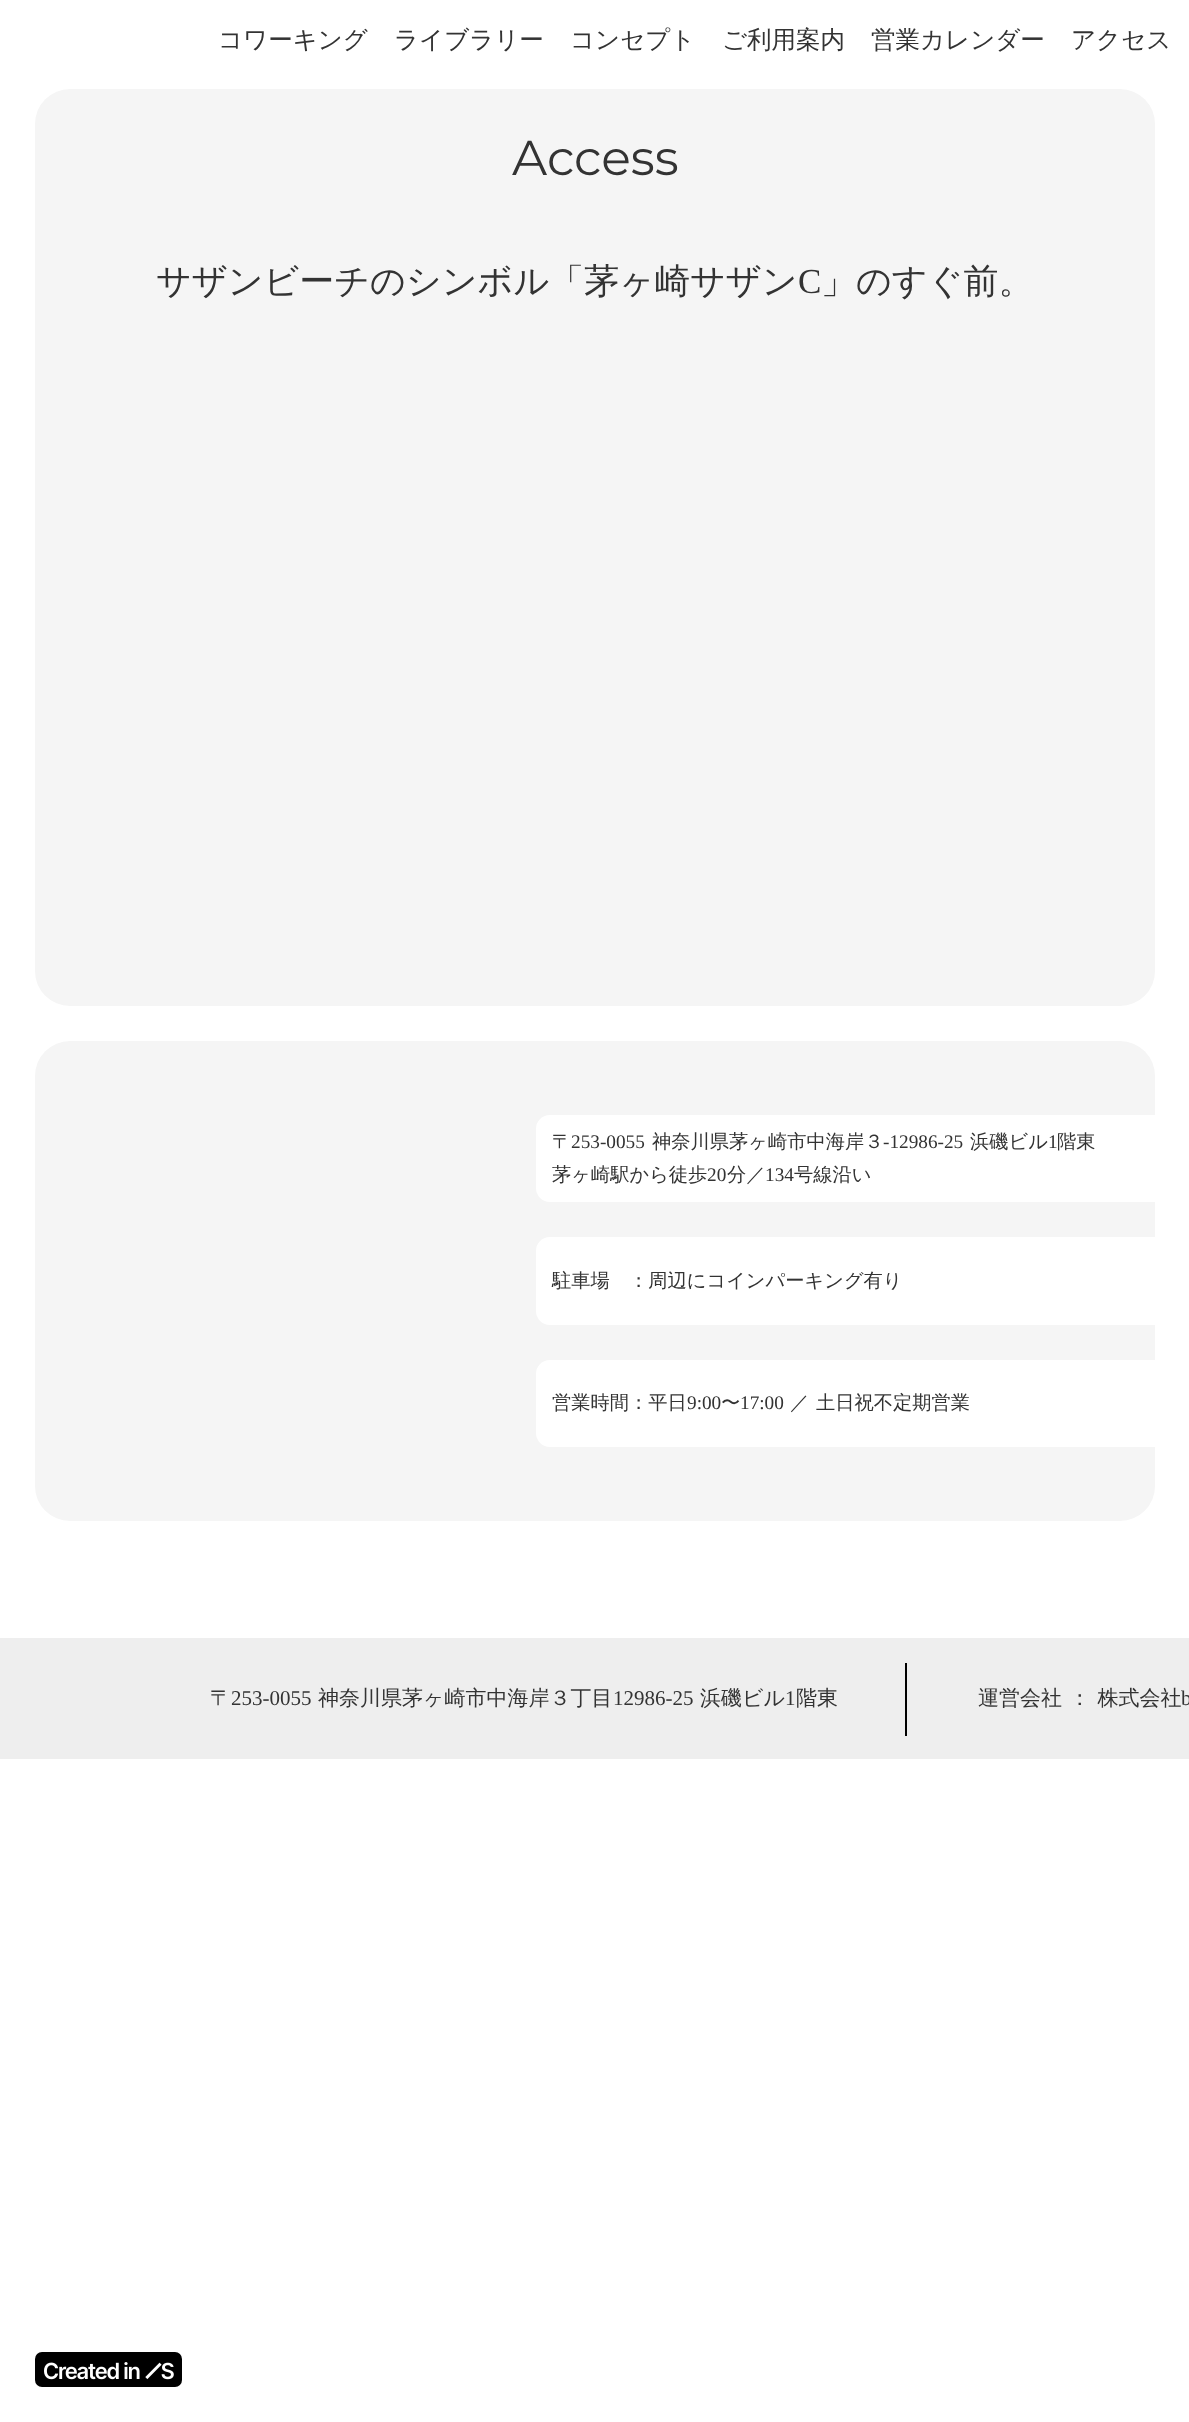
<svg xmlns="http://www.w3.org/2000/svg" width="1189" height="2422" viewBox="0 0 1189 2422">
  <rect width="100%" height="100%" fill="#fff"/>
  <rect x="35" y="89" width="1120" height="917" rx="35" fill="#f5f5f5"/>
  <rect x="35" y="1041" width="1120" height="480" rx="35" fill="#f5f5f5"/>
  <rect x="536" y="1115" width="652" height="87" rx="14" fill="#fff"/>
  <rect x="536" y="1237" width="652" height="88" rx="14" fill="#fff"/>
  <rect x="536" y="1360" width="652" height="87" rx="14" fill="#fff"/>
  <path d="M0 1638h1189v121H0z" fill="#eee"/>
  <path d="M905 1663h2v73H905z" fill="#000"/>
  <rect x="35" y="2352" width="147" height="35" rx="7" fill="#000"/>
  <image x="44" y="2362" width="130" height="18" href="img/1.png"/>
  <g font-family="WenQuanYi Zen Hei" font-size="24.5" font-weight="500" fill="#333">
    <text x="218" y="48">コワーキング</text>
    <text x="394" y="48">ライブラリー</text>
    <text x="570" y="48">コンセプト</text>
    <text x="722" y="48">ご利用案内</text>
    <text x="871" y="48">営業カレンダー</text>
    <text x="1071" y="48">アクセス</text>
  </g>
  <text x="512" y="175" font-family="Montserrat" font-size="49" fill="#333">Access</text>
  <text x="156" y="293" font-family="WenQuanYi Zen Hei" font-size="35" font-weight="500" fill="#333">サザンビーチのシンボル「茅ヶ崎サザン</text>
  <text x="798" y="293" font-family="Liberation Serif" font-size="35" fill="#333">C</text>
  <text x="821" y="293" font-family="WenQuanYi Zen Hei" font-size="35" font-weight="500" fill="#333">」のすぐ前。</text>
  <text x="552" y="1148" font-family="WenQuanYi Zen Hei" font-size="19.25" font-weight="500" fill="#333">〒</text>
  <text x="571" y="1148" font-family="Liberation Serif" font-size="19.25" fill="#333">253-0055</text>
  <text x="652" y="1148" font-family="WenQuanYi Zen Hei" font-size="19.25" font-weight="500" fill="#333">神奈川県茅ヶ崎市中海岸３</text>
  <text x="883" y="1148" font-family="Liberation Serif" font-size="19.25" fill="#333">-12986-25</text>
  <text x="970" y="1148" font-family="WenQuanYi Zen Hei" font-size="19.25" font-weight="500" fill="#333">浜磯ビル</text>
  <text x="1048" y="1148" font-family="Liberation Serif" font-size="19.25" fill="#333">1</text>
  <g font-family="WenQuanYi Zen Hei" font-size="19.25" font-weight="500" fill="#333">
    <text x="1057" y="1148">階東</text>
    <text x="552" y="1181">茅ヶ崎駅から徒歩</text>
  </g>
  <text x="707" y="1181" font-family="Liberation Serif" font-size="19.25" fill="#333">20</text>
  <text x="727" y="1181" font-family="WenQuanYi Zen Hei" font-size="19.25" font-weight="500" fill="#333">分／</text>
  <text x="765" y="1181" font-family="Liberation Serif" font-size="19.25" fill="#333">134</text>
  <g font-family="WenQuanYi Zen Hei" font-size="19.25" font-weight="500" fill="#333">
    <text x="794" y="1181">号線沿い</text>
    <text x="552" y="1287">駐車場　：周辺にコインパーキング有り</text>
    <text x="552" y="1409">営業時間：平日</text>
  </g>
  <text x="687" y="1409" font-family="Liberation Serif" font-size="19.25" fill="#333">9:00</text>
  <text x="721" y="1409" font-family="WenQuanYi Zen Hei" font-size="19.25" font-weight="500" fill="#333">〜</text>
  <text x="740" y="1409" font-family="Liberation Serif" font-size="19.25" fill="#333">17:00</text>
  <text x="790" y="1409" word-spacing="1" font-family="WenQuanYi Zen Hei" font-size="19.25" font-weight="500" fill="#333">／ 土日祝不定期営業</text>
  <text x="210" y="1705" font-family="WenQuanYi Zen Hei" font-size="21" font-weight="500" fill="#333">〒</text>
  <text x="231" y="1705" font-family="Liberation Serif" font-size="21" fill="#333">253-0055</text>
  <text x="318" y="1705" font-family="WenQuanYi Zen Hei" font-size="21" font-weight="500" fill="#333">神奈川県茅ヶ崎市中海岸３丁目</text>
  <text x="613" y="1705" font-family="Liberation Serif" font-size="21" fill="#333">12986-25</text>
  <text x="700" y="1705" font-family="WenQuanYi Zen Hei" font-size="21" font-weight="500" fill="#333">浜磯ビル</text>
  <text x="785" y="1705" font-family="Liberation Serif" font-size="21" fill="#333">1</text>
  <g font-family="WenQuanYi Zen Hei" font-size="21" font-weight="500" fill="#333">
    <text x="796" y="1705">階東</text>
    <text x="978" y="1705" word-spacing="1">運営会社 ： 株式会社</text>
  </g>
  <text x="1181" y="1705" font-family="Liberation Serif" font-size="21" fill="#333">b</text>
</svg>
